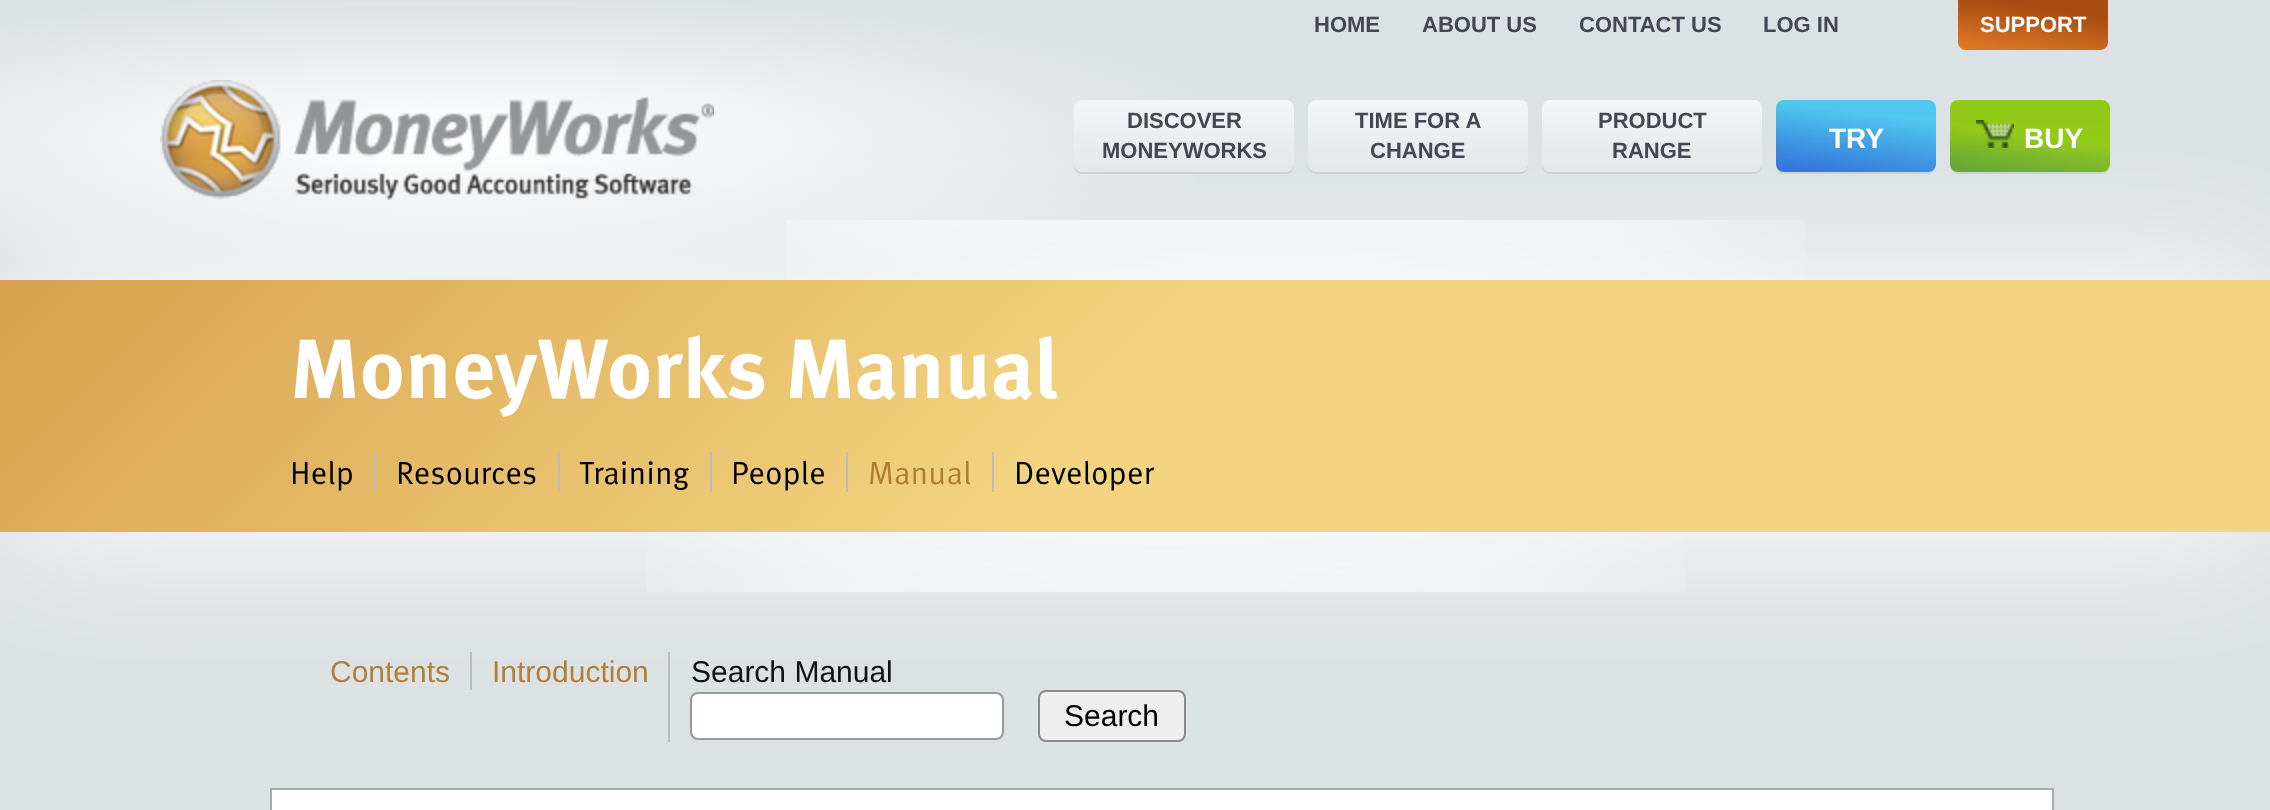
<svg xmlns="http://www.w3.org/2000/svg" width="2270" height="810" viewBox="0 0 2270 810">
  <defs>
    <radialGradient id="g1" gradientUnits="userSpaceOnUse" cx="0" cy="0" r="1" gradientTransform="matrix(1061 0 0 198 460 140)"><stop offset="0" stop-color="#fff"/><stop offset="0.75" stop-color="#dce1e4"/></radialGradient>
    <linearGradient id="g2" gradientUnits="userSpaceOnUse" x1="2028" y1="59" x2="2038" y2="-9"><stop offset="0" stop-color="#df7a26"/><stop offset="0.75" stop-color="#a94c11"/></linearGradient>
    <linearGradient id="g3" gradientUnits="userSpaceOnUse" x1="1184" y1="100" x2="1184" y2="172"><stop offset="0" stop-color="#f4f5f7"/><stop offset="1" stop-color="#e3e6e9"/></linearGradient>
    <linearGradient id="g4" gradientUnits="userSpaceOnUse" x1="1418" y1="100" x2="1418" y2="172"><stop offset="0" stop-color="#f4f5f7"/><stop offset="1" stop-color="#e3e6e9"/></linearGradient>
    <linearGradient id="g5" gradientUnits="userSpaceOnUse" x1="1652" y1="100" x2="1652" y2="172"><stop offset="0" stop-color="#f4f5f7"/><stop offset="1" stop-color="#e3e6e9"/></linearGradient>
    <linearGradient id="g6" gradientUnits="userSpaceOnUse" x1="1850" y1="182" x2="1862" y2="90"><stop offset="0" stop-color="#2468d7"/><stop offset="0.75" stop-color="#51c7ef"/></linearGradient>
    <linearGradient id="g7" gradientUnits="userSpaceOnUse" x1="2024" y1="182" x2="2036" y2="90"><stop offset="0" stop-color="#559d2d"/><stop offset="0.5" stop-color="#92c916"/></linearGradient>
    <linearGradient id="g8" gradientUnits="userSpaceOnUse" x1="504" y1="-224" x2="1766" y2="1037"><stop offset="0" stop-color="#d7a14f"/><stop offset="0.5" stop-color="#f3d581"/></linearGradient>
    <clipPath id="clip1"><path d="M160 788h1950v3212H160z"/></clipPath>
  </defs>
  <rect width="100%" height="100%" fill="#dce1e4"/>
  <path d="M0 2h1197v276H0z" fill="url(#g1)"/>
  <path d="M1958 0H2108V42C2108 46.5 2104.5 50 2100 50H1966C1961.5 50 1958 46.5 1958 42Z" fill="url(#g2)"/>
  <image x="160" y="80" width="554" height="120" href="img/1.png"/>
  <path d="M1074 164V166C1074 170 1078 174 1082 174H1286C1290 174 1294 170 1294 166V164C1294 168 1290 172 1286 172H1082C1078 172 1074 168 1074 164Z" fill="#cacdcf"/>
  <rect x="1074" y="100" width="220" height="72" rx="8" fill="url(#g3)"/>
  <path d="M1308 164V166C1308 170 1312 174 1316 174H1520C1524 174 1528 170 1528 166V164C1528 168 1524 172 1520 172H1316C1312 172 1308 168 1308 164Z" fill="#cacdcf"/>
  <rect x="1308" y="100" width="220" height="72" rx="8" fill="url(#g4)"/>
  <path d="M1542 164V166C1542 170 1546 174 1550 174H1754C1758 174 1762 170 1762 166V164C1762 168 1758 172 1754 172H1550C1546 172 1542 168 1542 164Z" fill="#cacdcf"/>
  <rect x="1542" y="100" width="220" height="72" rx="8" fill="url(#g5)"/>
  <path d="M1776 164V166C1776 170 1780 174 1784 174H1928C1932 174 1936 170 1936 166V164C1936 168 1932 172 1928 172H1784C1780 172 1776 168 1776 164Z" fill="#cacdcf"/>
  <rect x="1776" y="100" width="160" height="72" rx="8" fill="url(#g6)"/>
  <path d="M1950 164V166C1950 170 1954 174 1958 174H2102C2106 174 2110 170 2110 166V164C2110 168 2106 172 2102 172H1958C1954 172 1950 168 1950 164Z" fill="#cacdcf"/>
  <rect x="1950" y="100" width="160" height="72" rx="8" fill="url(#g7)"/>
  <image x="1976" y="120" width="38" height="28" href="img/2.png"/>
  <path d="M470 652h2v38H470z" fill="#bbb"/>
  <path d="M668 652h2v90H668z" fill="#bbb"/>
  <rect x="691" y="693" width="312" height="46" rx="7" fill="#fff" stroke="#999" stroke-width="2"/>
  <rect x="1039" y="691" width="146" height="50" rx="7" fill="#eee" stroke="#888" stroke-width="2"/>
  <path d="M0 280h2270v252H0z" fill="#fff" filter="blur(75px)"/>
  <path d="M0 280h2270v252H0z" fill="url(#g8)"/>
  <image x="786" y="220" width="1019" height="60" href="img/3.png"/>
  <path d="M374 452h2v40H374z" fill="#bbb"/>
  <path d="M558 452h2v40H558z" fill="#bbb"/>
  <path d="M710 452h2v40H710z" fill="#bbb"/>
  <path d="M846 452h2v40H846z" fill="#bbb"/>
  <path d="M992 452h2v40H992z" fill="#bbb"/>
  <image x="647" y="532" width="1038" height="60" href="img/4.png"/>
  <g clip-path="url(#clip1)">
    <path d="M282 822h1756v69H282z" fill="#828282" filter="blur(27px)"/>
  </g>
  <path d="M271 789h1782v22H271z" fill="#fff" stroke="#aaa" stroke-width="2"/>
  <g font-family="Liberation Sans" font-size="22" font-weight="bold" fill="#444651">
    <text x="1314" y="32">HOME</text>
    <text x="1422" y="32">ABOUT US</text>
    <text x="1579" y="32">CONTACT US</text>
    <text x="1763" y="32">LOG IN</text>
  </g>
  <text x="1980" y="32" font-family="Liberation Sans" font-size="22" font-weight="bold" fill="#fff">SUPPORT</text>
  <g font-family="Liberation Sans" font-size="22" font-weight="bold" fill="#444651">
    <text x="1127" y="128">DISCOVER</text>
    <text x="1102" y="158">MONEYWORKS</text>
    <text x="1355" y="128">TIME FOR A</text>
    <text x="1370" y="158">CHANGE</text>
    <text x="1598" y="128">PRODUCT</text>
    <text x="1612" y="158">RANGE</text>
  </g>
  <g font-family="Liberation Sans" font-size="28" font-weight="bold" fill="#fff">
    <text x="1829" y="148">TRY</text>
    <text x="2024" y="148">BUY</text>
  </g>
  <text x="290" y="398" font-family="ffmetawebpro" font-size="84" font-weight="bold" fill="#fff">MoneyWorks Manual</text>
  <g font-family="ffmetawebpro" font-size="32" fill="#000">
    <text x="290" y="484">Help</text>
    <text x="396" y="484">Resources</text>
    <text x="579" y="484">Training</text>
    <text x="731" y="484">People</text>
  </g>
  <text x="868" y="484" font-family="ffmetawebpro" font-size="32" fill="#ae7d33">Manual</text>
  <text x="1014" y="484" font-family="ffmetawebpro" font-size="32" fill="#000">Developer</text>
  <g font-family="Liberation Sans" font-size="30" fill="#b27f39">
    <text x="330" y="682">Contents</text>
    <text x="492" y="682">Introduction</text>
  </g>
  <text x="691" y="682" font-family="Liberation Sans" font-size="30" fill="#111">Search Manual</text>
  <text x="1064" y="726" font-family="Liberation Sans" font-size="30" fill="#000">Search</text>
</svg>
